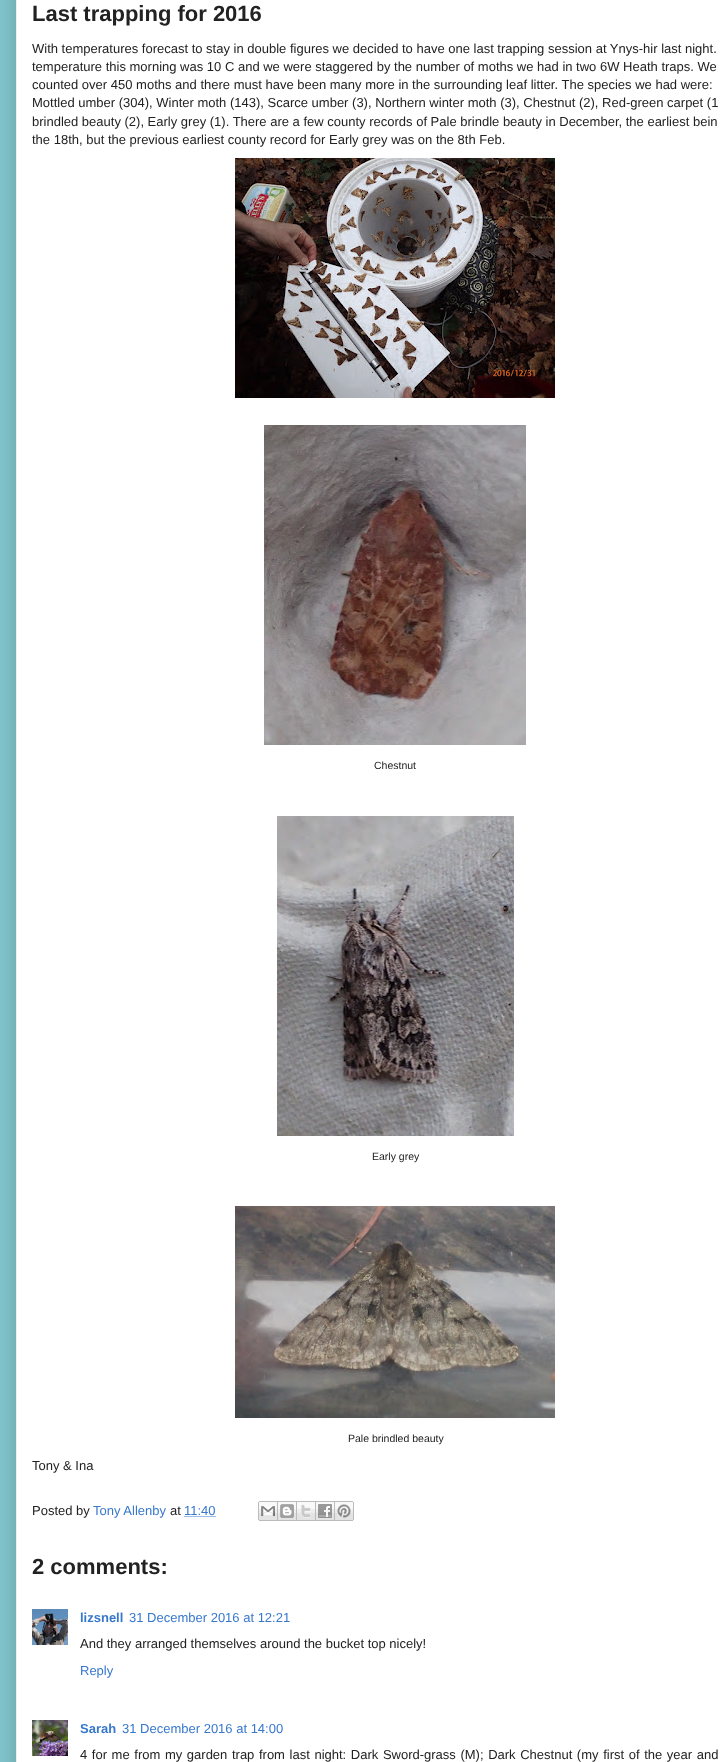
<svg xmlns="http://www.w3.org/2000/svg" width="720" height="1762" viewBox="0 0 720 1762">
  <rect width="100%" height="100%" fill="#82c5cd"/>
  <path d="M16 -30h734v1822H16z" fill="#00000033" filter="blur(10px)"/>
  <path d="M16.5 -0.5h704v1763H16.5z" fill="#fff" stroke="#eee"/>
  <image x="235" y="158" width="320" height="240" href="img/1.png"/>
  <image x="264" y="425" width="262" height="320" href="img/2.png"/>
  <image x="277" y="816" width="237" height="320" href="img/3.png"/>
  <image x="235" y="1206" width="320" height="212" href="img/4.png"/>
  <path d="M184.5 1516.5H216" fill="none" stroke="#3778cd" stroke-dasharray="1 1"/>
  <image x="258" y="1501" width="20" height="20" href="img/5.png"/>
  <image x="278" y="1501" width="19" height="20" href="img/6.png"/>
  <image x="297" y="1501" width="19" height="20" href="img/7.png"/>
  <image x="316" y="1501" width="19" height="20" href="img/8.png"/>
  <image x="335" y="1501" width="19" height="20" href="img/9.png"/>
  <image x="32" y="1609" width="36" height="36" href="img/10.png"/>
  <image x="32" y="1720" width="36" height="36" href="img/11.png"/>
  <text x="32" y="21" font-family="Liberation Sans" font-size="22" font-weight="bold" fill="#222">Last trapping for 2016</text>
  <g font-family="Liberation Sans" font-size="13" fill="#222">
    <text x="32" y="53">With temperatures forecast to stay in double figures we decided to have one last trapping session at Ynys-hir last night.</text>
    <text x="32" y="71">temperature this morning was 10 C and we were staggered by the number of moths we had in two 6W Heath traps. We</text>
    <text x="32" y="89">counted over 450 moths and there must have been many more in the surrounding leaf litter. The species we had were:</text>
    <text x="32" y="107">Mottled umber (304), Winter moth (143), Scarce umber (3), Northern winter moth (3), Chestnut (2), Red-green carpet (1</text>
    <text x="32" y="126">brindled beauty (2), Early grey (1). There are a few county records of Pale brindle beauty in December, the earliest bein</text>
    <text x="32" y="144">the 18th, but the previous earliest county record for Early grey was on the 8th Feb.</text>
  </g>
  <g font-family="Liberation Sans" font-size="10.5" fill="#222">
    <text x="374" y="769">Chestnut</text>
    <text x="372" y="1160">Early grey</text>
    <text x="348" y="1442">Pale brindled beauty</text>
  </g>
  <g font-family="Liberation Sans" font-size="13" fill="#222">
    <text x="32" y="1470">Tony &amp; Ina</text>
    <text x="32" y="1515">Posted by</text>
  </g>
  <text x="93" y="1515" font-family="Liberation Sans" font-size="13" fill="#3778cd">Tony Allenby</text>
  <text x="170" y="1515" font-family="Liberation Sans" font-size="13" fill="#222">at</text>
  <text x="184" y="1515" font-family="Liberation Sans" font-size="13" fill="#3778cd">11:40</text>
  <text x="32" y="1574" font-family="Liberation Sans" font-size="22" font-weight="bold" fill="#222">2 comments:</text>
  <text x="80" y="1622" font-family="Liberation Sans" font-size="13" font-weight="bold" fill="#3778cd">lizsnell</text>
  <text x="129" y="1622" font-family="Liberation Sans" font-size="13" fill="#3778cd">31 December 2016 at 12:21</text>
  <text x="80" y="1648" font-family="Liberation Sans" font-size="13" fill="#222">And they arranged themselves around the bucket top nicely!</text>
  <text x="80" y="1675" font-family="Liberation Sans" font-size="13" fill="#3778cd">Reply</text>
  <text x="80" y="1733" font-family="Liberation Sans" font-size="13" font-weight="bold" fill="#3778cd">Sarah</text>
  <text x="122" y="1733" font-family="Liberation Sans" font-size="13" fill="#3778cd">31 December 2016 at 14:00</text>
  <text x="80" y="1759" word-spacing="1" font-family="Liberation Sans" font-size="13" fill="#222">4 for me from my garden trap from last night: Dark Sword-grass (M); Dark Chestnut (my first of the year and</text>
</svg>
